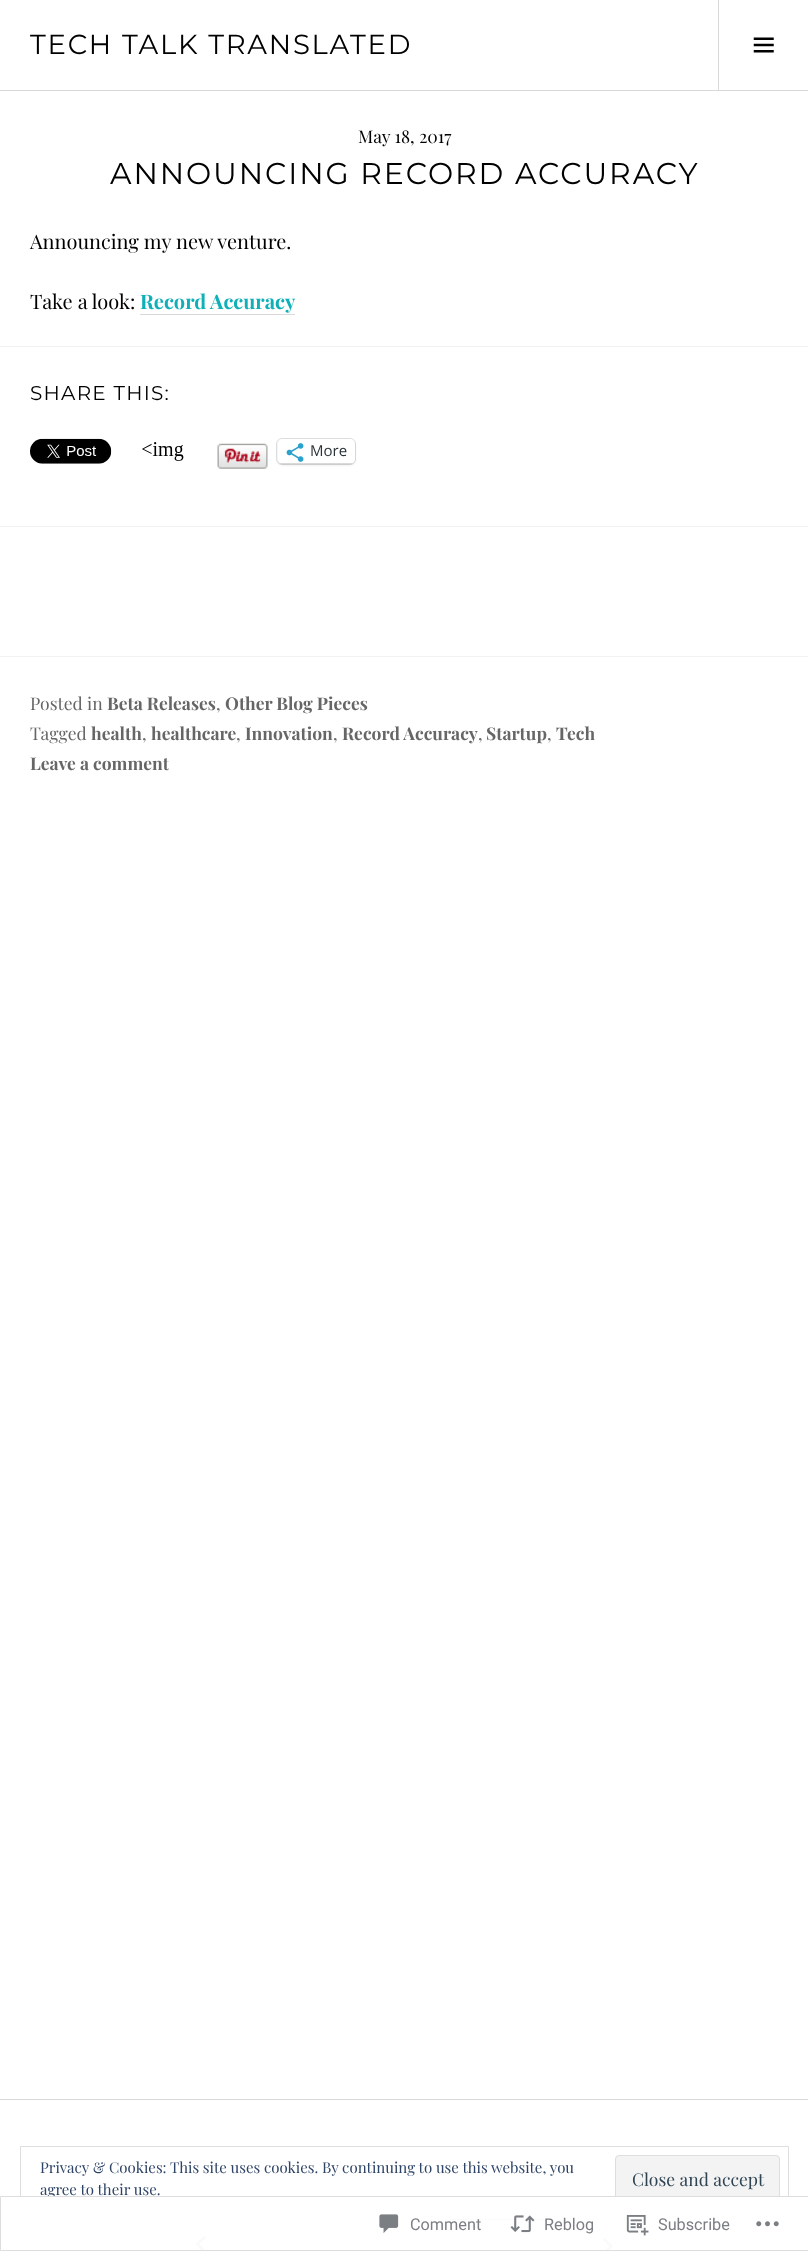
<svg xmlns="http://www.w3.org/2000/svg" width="808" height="2251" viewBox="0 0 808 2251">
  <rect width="100%" height="100%" fill="#fff"/>
  <path d="M0 90h808v1H0z" fill="#d9d9d9"/>
  <path d="M718 0h1v90H718z" fill="#d9d9d9"/>
  <image x="753" y="37" width="21" height="16" href="img/1.png"/>
  <path d="M140 314h155v1H140z" fill="#d9d9d9"/>
  <path d="M0 346h808v1H0z" fill="#f2f2f2"/>
  <image x="30" y="438" width="82" height="26" href="img/2.png"/>
  <image x="142" y="442" width="42" height="19" href="img/3.png"/>
  <image x="217" y="443" width="51" height="26" href="img/4.png"/>
  <rect x="276.5" y="438.5" width="79" height="26" rx="5.5" fill="none" stroke="#e0e0e0"/>
  <rect x="278" y="440" width="77" height="25" rx="5" fill="#0000001f" filter="blur(1px)"/>
  <rect x="278" y="439" width="77" height="25" rx="5" fill="#fff"/>
  <path d="M280 463h73v1H280z" fill="#d9d9d9"/>
  <image x="286" y="443" width="18" height="19" href="img/5.png"/>
  <path d="M0 526h808v1H0z" fill="#f2f2f2"/>
  <path d="M0 656h808v1H0z" fill="#f2f2f2"/>
  <path d="M0 2099h808v1H0z" fill="#d9d9d9"/>
  <path d="M0 2199h808v1H0z" fill="#d9d9d9"/>
  <path d="M405 2231h1v20H405z" fill="#d9d9d9"/>
  <image x="195" y="2236" width="11" height="15" href="img/6.png"/>
  <image x="602" y="2237" width="11" height="14" href="img/7.png"/>
  <path d="M21 2199h767v1H21z" fill="#fff"/>
  <path d="M20.5 2146.5h768v84H20.5z" fill="none" stroke="#dedede"/>
  <rect x="615.5" y="2155.5" width="164" height="48" rx="3.5" fill="#f3f3f3" stroke="#dedede"/>
  <path d="M450 2219h94v1H450z" fill="#2e4467"/>
  <path d="M450 2221h94v1H450z" fill="#d9d9d9"/>
  <text x="30" y="54" font-family="Montserrat" font-size="27.5" letter-spacing="1.75" fill="#000">TECH TALK TRANSLATED</text>
  <text x="358" y="143" font-family="Playfair Display" font-size="17.5" fill="#000">May 18, 2017</text>
  <text x="110" y="184" font-family="Montserrat" font-size="30" letter-spacing="1.9" fill="#000">ANNOUNCING RECORD ACCURACY</text>
  <g font-family="Playfair Display" font-size="20" fill="#000">
    <text x="30" y="249">Announcing my new venture.</text>
    <text x="30" y="309">Take a look:</text>
  </g>
  <text x="140" y="309" font-family="Playfair Display" font-size="20" font-weight="bold" fill="#10b0b8">Record Accuracy</text>
  <text x="30" y="400" font-family="Montserrat" font-size="20" letter-spacing="1.25" fill="#000">SHARE THIS:</text>
  <text x="310" y="456" font-family="Open Sans" font-size="15" fill="#2c3338">More</text>
  <text x="30" y="710" font-family="Playfair Display" font-size="17.5" fill="#666">Posted in</text>
  <text x="107" y="710" font-family="Playfair Display" font-size="17.5" font-weight="bold" fill="#666">Beta Releases</text>
  <text x="216" y="710" font-family="Playfair Display" font-size="17.5" fill="#666">,</text>
  <text x="225" y="710" font-family="Playfair Display" font-size="17.5" font-weight="bold" fill="#666">Other Blog Pieces</text>
  <text x="30" y="740" font-family="Playfair Display" font-size="17.5" fill="#666">Tagged</text>
  <text x="91" y="740" font-family="Playfair Display" font-size="17.5" font-weight="bold" fill="#666">health</text>
  <text x="142" y="740" font-family="Playfair Display" font-size="17.5" fill="#666">,</text>
  <text x="151" y="740" font-family="Playfair Display" font-size="17.5" font-weight="bold" fill="#666">healthcare</text>
  <text x="236" y="740" font-family="Playfair Display" font-size="17.5" fill="#666">,</text>
  <text x="245" y="740" font-family="Playfair Display" font-size="17.5" font-weight="bold" fill="#666">Innovation</text>
  <text x="333" y="740" font-family="Playfair Display" font-size="17.5" fill="#666">,</text>
  <text x="342" y="740" font-family="Playfair Display" font-size="17.5" font-weight="bold" fill="#666">Record Accuracy</text>
  <text x="478" y="740" font-family="Playfair Display" font-size="17.5" fill="#666">,</text>
  <text x="486" y="740" font-family="Playfair Display" font-size="17.5" font-weight="bold" fill="#666">Startup</text>
  <text x="547" y="740" font-family="Playfair Display" font-size="17.5" fill="#666">,</text>
  <g font-family="Playfair Display" font-size="17.5" font-weight="bold" fill="#666">
    <text x="556" y="740">Tech</text>
    <text x="30" y="770">Leave a comment</text>
  </g>
  <g font-family="Playfair Display" font-size="15" fill="#2e4467">
    <text x="40" y="2173">Privacy &amp; Cookies: This site uses cookies. By continuing to use this website, you</text>
    <text x="40" y="2195">agree to their use.</text>
  </g>
  <text x="632" y="2186" font-family="Playfair Display" font-size="17.5" fill="#2e4453">Close and accept</text>
  <path d="M0 2196h808v55H0z" fill="#fffffffa"/>
  <path d="M0.5 2196.5h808v54H0.5z" fill="none" stroke="#dcdcdefa"/>
  <image x="379" y="2214" width="20" height="19" href="img/8.png"/>
  <text x="410" y="2230" font-family="Roboto" font-size="16.25" fill="#7b7f84">Comment</text>
  <image x="510" y="2215" width="25" height="18" href="img/9.png"/>
  <text x="544" y="2230" font-family="Roboto" font-size="16.25" fill="#7b7f84">Reblog</text>
  <image x="626" y="2215" width="23" height="21" href="img/10.png"/>
  <text x="658" y="2230" font-family="Roboto" font-size="16.25" fill="#7b7f84">Subscribe</text>
  <image x="756" y="2221" width="23" height="6" href="img/11.png"/>
</svg>
